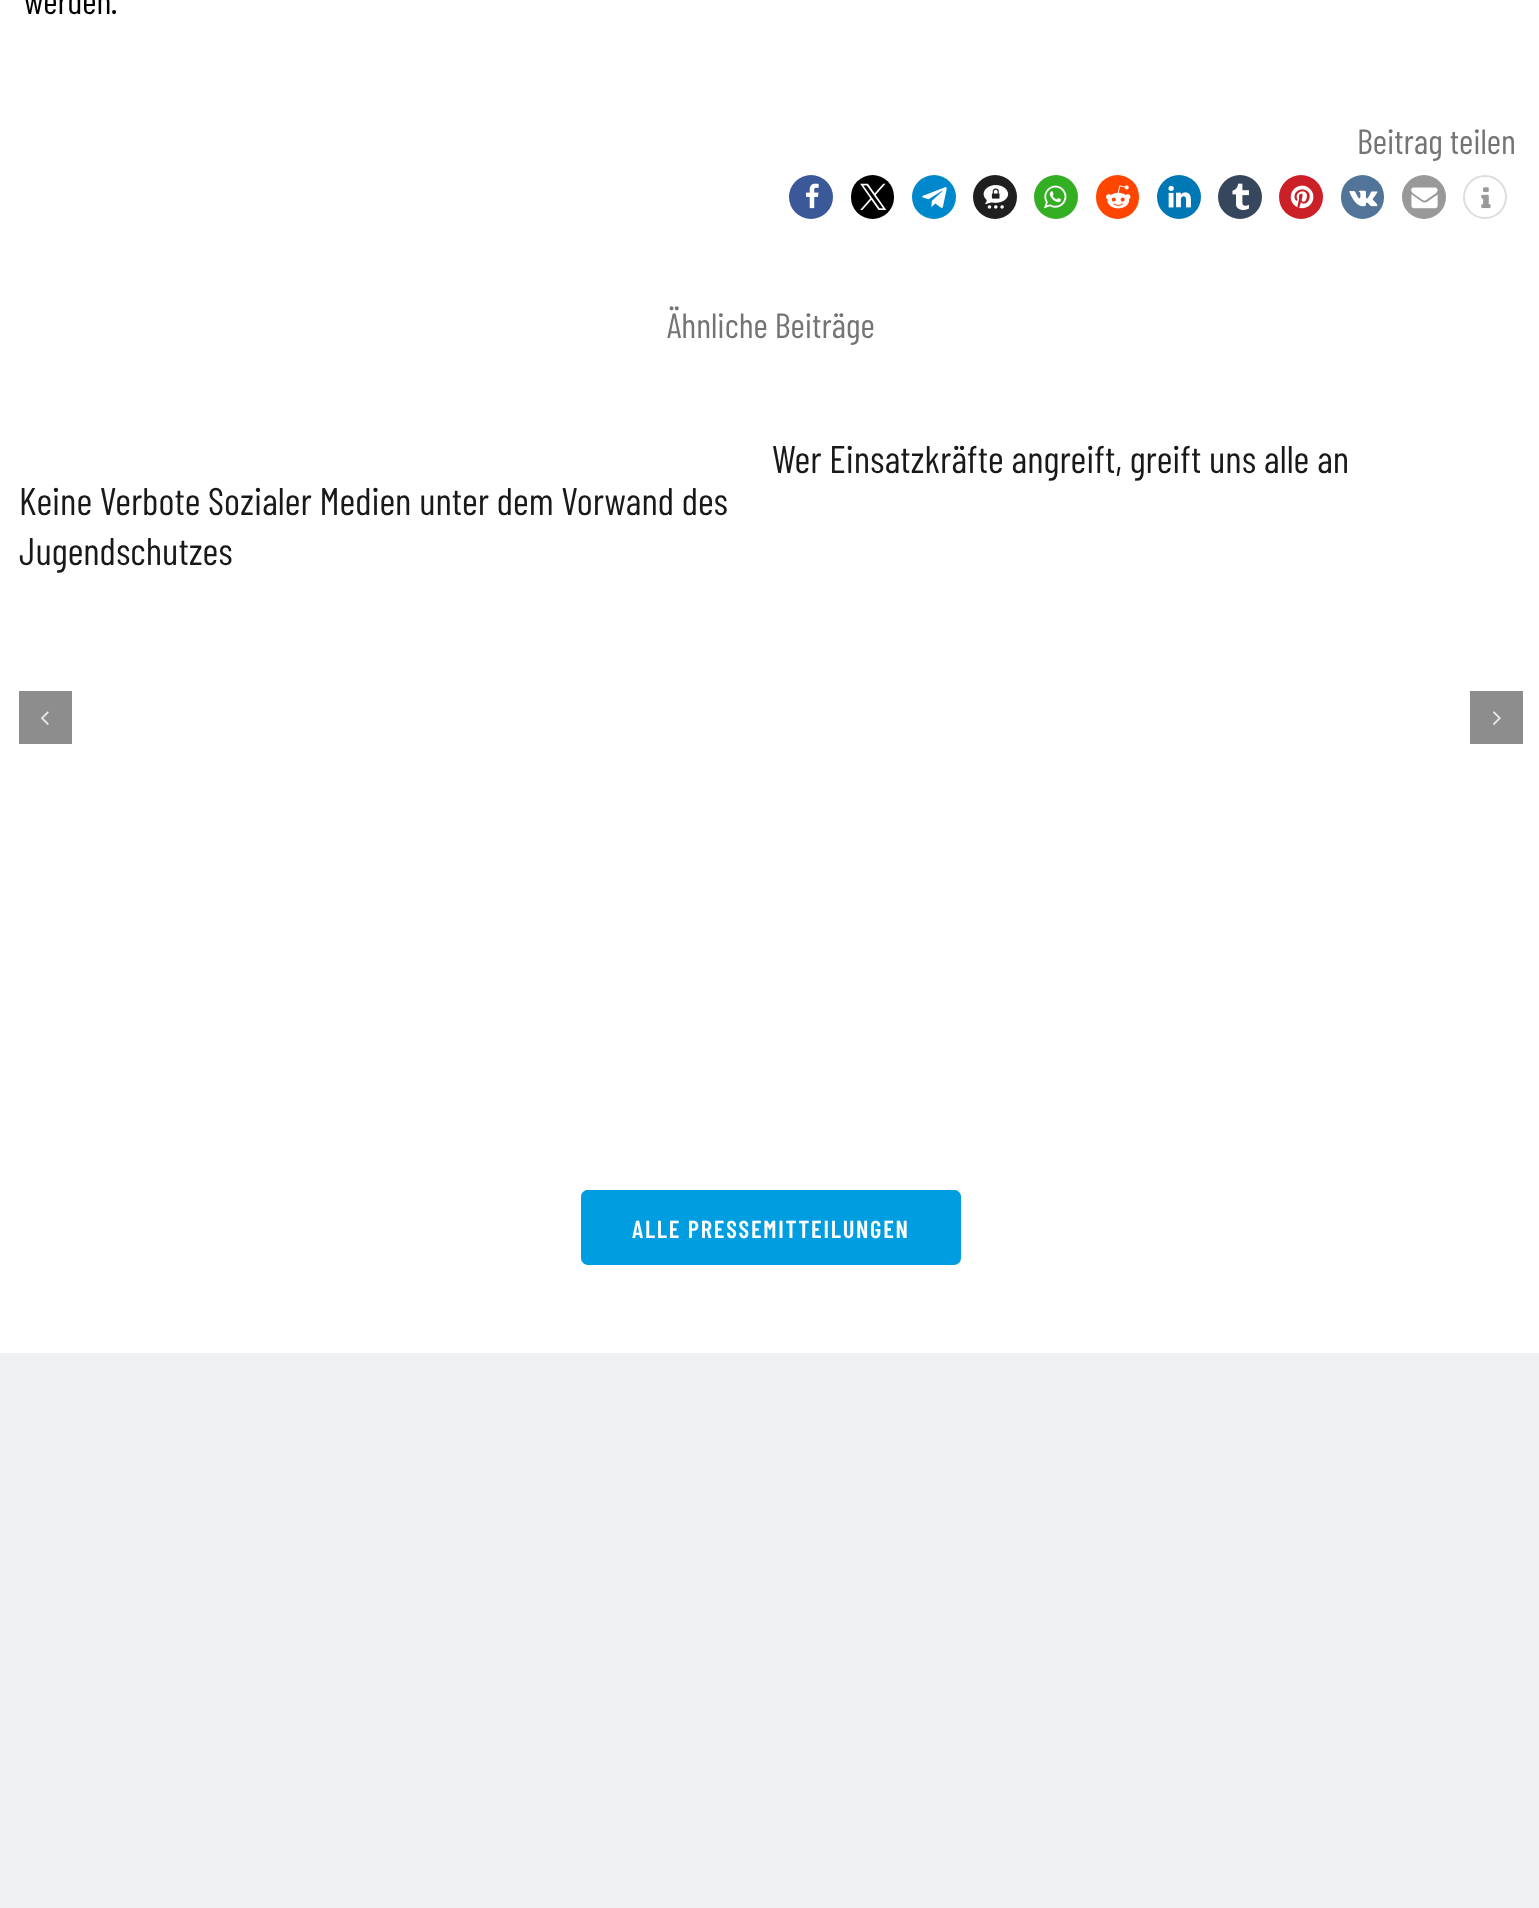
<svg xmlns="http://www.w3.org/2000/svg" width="1539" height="1908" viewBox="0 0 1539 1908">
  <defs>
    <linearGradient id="g1" gradientUnits="userSpaceOnUse" x1="771" y1="1190" x2="771" y2="1265"><stop offset="0" stop-color="#009ee0"/><stop offset="1" stop-color="#009ee0" stop-opacity="0"/></linearGradient>
  </defs>
  <rect width="100%" height="100%" fill="#fff"/>
  <circle cx="811" cy="197" r="22" fill="#3b5998"/>
  <image x="806" y="183" width="13" height="26" href="img/1.png"/>
  <rect x="851" y="175" width="43" height="44" rx="21.5" fill="#000"/>
  <image x="860" y="183" width="27" height="27" href="img/2.png"/>
  <circle cx="934" cy="197" r="22" fill="#08c"/>
  <image x="922" y="187" width="25" height="21" href="img/3.png"/>
  <circle cx="995" cy="197" r="22" fill="#1f1f1f"/>
  <image x="983" y="185" width="26" height="24" href="img/4.png"/>
  <circle cx="1056" cy="197" r="22" fill="#34af23"/>
  <image x="1044" y="185" width="23" height="24" href="img/5.png"/>
  <rect x="1096" y="175" width="43" height="44" rx="21.5" fill="#ff4500"/>
  <image x="1106" y="185" width="25" height="24" href="img/6.png"/>
  <circle cx="1179" cy="197" r="22" fill="#0077b5"/>
  <image x="1168" y="185" width="23" height="23" href="img/7.png"/>
  <circle cx="1240" cy="197" r="22" fill="#36465d"/>
  <image x="1232" y="183" width="17" height="27" href="img/8.png"/>
  <circle cx="1301" cy="197" r="22" fill="#cb2027"/>
  <image x="1290" y="185" width="24" height="24" href="img/9.png"/>
  <rect x="1341" y="175" width="43" height="44" rx="21.5" fill="#527498"/>
  <image x="1349" y="190" width="29" height="17" href="img/10.png"/>
  <circle cx="1424" cy="197" r="22" fill="#999"/>
  <image x="1411" y="187" width="27" height="22" href="img/11.png"/>
  <circle cx="1485" cy="197" r="21" fill="none" stroke="#ddd" stroke-width="2"/>
  <image x="1481" y="187" width="10" height="22" href="img/12.png"/>
  <path d="M19 691h53v53H19z" fill="#8d8d8d"/>
  <image x="41" y="711" width="8" height="14" href="img/13.png"/>
  <path d="M1470 691h53v53H1470z" fill="#8d8d8d"/>
  <image x="1493" y="711" width="8" height="14" href="img/14.png"/>
  <rect x="581" y="1190" width="380" height="75" rx="7" fill="#009ee0"/>
  <rect x="581" y="1190" width="380" height="75" rx="7" fill="url(#g1)"/>
  <path d="M0 1353h1539v555H0z" fill="#eef0f1"/>
  <text x="24" y="14" font-family="Barlow Condensed" font-size="35" fill="#000">werden.</text>
  <g font-family="Barlow Condensed" font-size="35" fill="#747474">
    <text x="1357" y="154">Beitrag teilen</text>
    <text x="667" y="338">Ähnliche Beiträge</text>
  </g>
  <g font-family="Barlow Condensed" font-size="38.5" fill="#191919">
    <text x="772" y="473">Wer Einsatzkräfte angreift, greift uns alle an</text>
    <text x="19" y="515">Keine Verbote Sozialer Medien unter dem Vorwand des</text>
    <text x="19" y="565">Jugendschutzes</text>
  </g>
  <text x="632" y="1238" font-family="Barlow Condensed" font-size="24.5" font-weight="600" letter-spacing="1.75" fill="#fff">ALLE PRESSEMITTEILUNGEN</text>
</svg>
